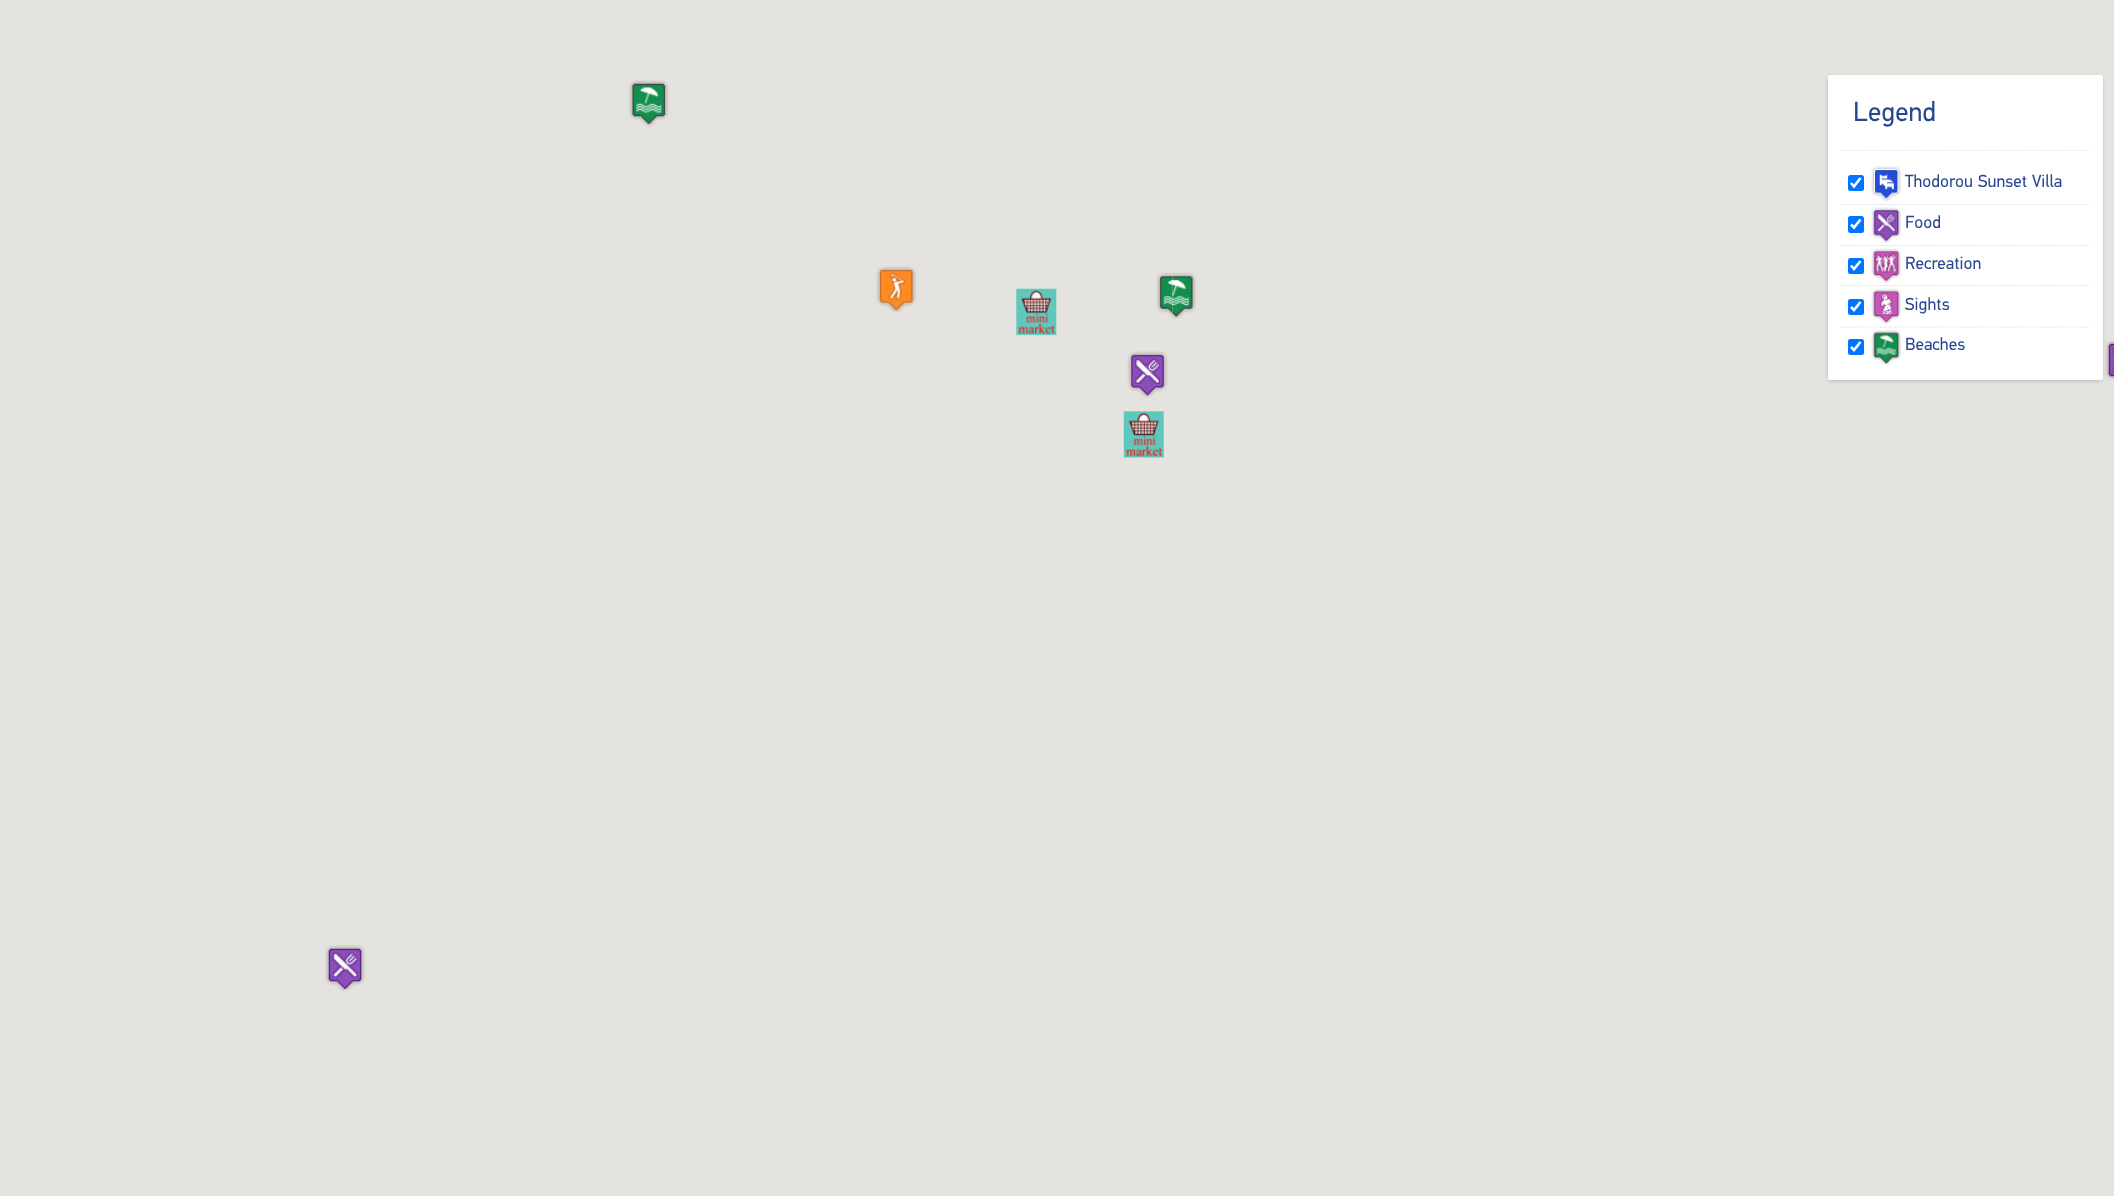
<svg xmlns="http://www.w3.org/2000/svg" width="2114" height="1196" viewBox="0 0 2114 1196">
  <rect width="100%" height="100%" fill="#e5e3df"/>
  <image x="629" y="80" width="40" height="47" href="img/1.png"/>
  <image x="876" y="266" width="297" height="192" href="img/2.png"/>
  <image x="1172" y="272" width="24" height="47" href="img/3.png"/>
  <image x="2105" y="340" width="9" height="40" href="img/4.png"/>
  <image x="325" y="945" width="40" height="47" href="img/5.png"/>
  <rect x="1829" y="78" width="272" height="302" rx="1" fill="#0000004d" filter="blur(2.5px)"/>
  <rect x="1828" y="75" width="275" height="305" rx="2.5" fill="#fff"/>
  <path d="M1840 150.5H2090" fill="none" stroke="#e1e1e1" stroke-width="1.2" stroke-dasharray="1.25 1.25"/>
  <path d="M1840 204.5H2090" fill="none" stroke="#ddd" stroke-width="1.2" stroke-dasharray="1.25 1.25"/>
  <rect x="1848" y="175" width="16" height="16" rx="2.5" fill="#0075ff"/>
  <path d="M1851 183L1854 186.5L1860.5 178" fill="none" stroke="#fff" stroke-width="2.6"/>
  <image x="1871" y="166" width="30" height="36" href="img/6.png"/>
  <path d="M1840 245.5H2090" fill="none" stroke="#ddd" stroke-width="1.2" stroke-dasharray="1.25 1.25"/>
  <rect x="1848" y="216" width="16" height="17" rx="2.5" fill="#0075ff"/>
  <path d="M1851 224.5L1854 227.5L1860.5 219.5" fill="none" stroke="#fff" stroke-width="2.6"/>
  <image x="1871" y="207" width="30" height="36" href="img/7.png"/>
  <path d="M1840 285.5H2090" fill="none" stroke="#ddd" stroke-width="1.2" stroke-dasharray="1.25 1.25"/>
  <rect x="1848" y="258" width="16" height="16" rx="2.5" fill="#0075ff"/>
  <path d="M1851 265.5L1854 269L1860.5 261" fill="none" stroke="#fff" stroke-width="2.6"/>
  <image x="1871" y="248" width="30" height="35" href="img/8.png"/>
  <path d="M1840 327H2090" fill="none" stroke="#ddd" stroke-width="1.2" stroke-dasharray="1.25 1.25"/>
  <rect x="1848" y="299" width="16" height="16" rx="2.5" fill="#0075ff"/>
  <path d="M1851 307L1854 310L1860.5 302" fill="none" stroke="#fff" stroke-width="2.6"/>
  <image x="1871" y="288" width="30" height="36" href="img/9.png"/>
  <rect x="1848" y="339" width="16" height="16" rx="2.5" fill="#0075ff"/>
  <path d="M1851 347L1854 350L1860.5 342" fill="none" stroke="#fff" stroke-width="2.6"/>
  <image x="1871" y="330" width="30" height="35" href="img/10.png"/>
  <text x="1853" y="121" font-family="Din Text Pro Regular" font-size="27.5" fill="#284791">Legend</text>
  <g font-family="Din Text Pro Regular" font-size="17.5" fill="#284791">
    <text x="1905" y="187" word-spacing="1">Thodorou Sunset Villa</text>
    <text x="1905" y="228">Food</text>
    <text x="1905" y="269">Recreation</text>
    <text x="1905" y="310">Sights</text>
    <text x="1905" y="350">Beaches</text>
  </g>
</svg>
